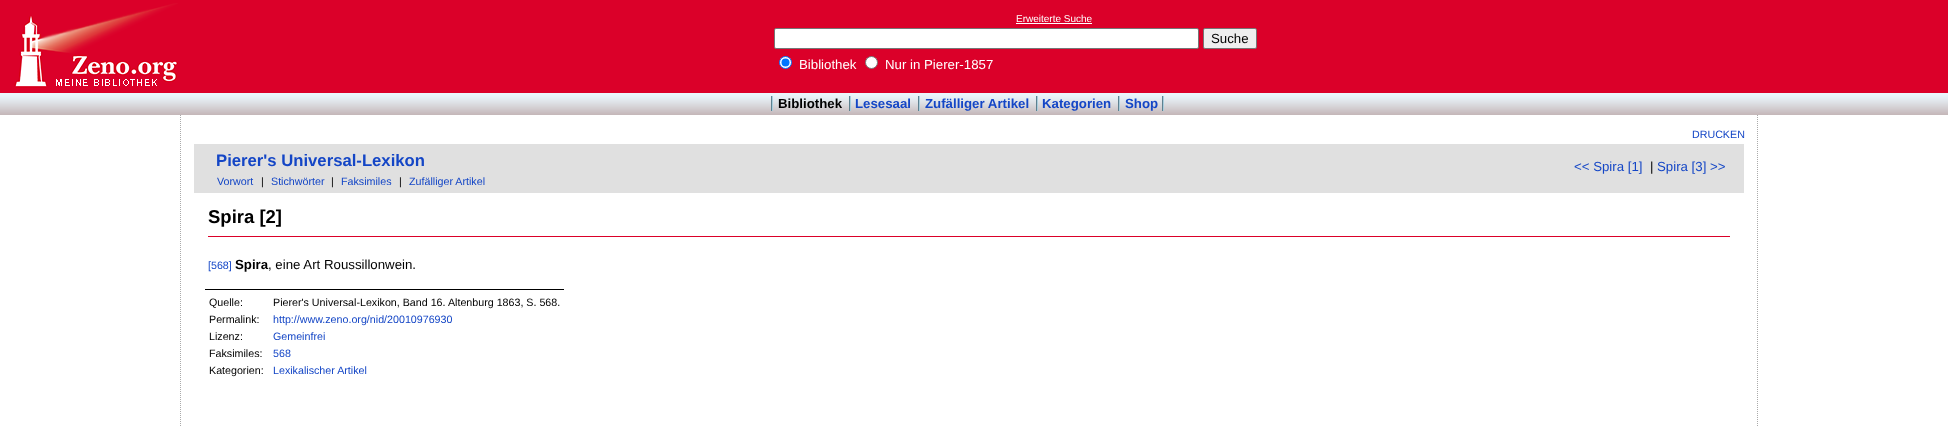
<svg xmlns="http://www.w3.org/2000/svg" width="1948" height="426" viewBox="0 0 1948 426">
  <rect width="100%" height="100%" fill="#fff"/>
  <path d="M0 0h1948v93H0z" fill="#db0029"/>
  <image x="14" y="3" width="164" height="85" href="img/1.png"/>
  <path d="M1016 23h76v1H1016z" fill="#fff"/>
  <rect x="774.5" y="28.5" width="424" height="20" rx="1.5" fill="#fff" stroke="#767676"/>
  <rect x="1203.5" y="28.5" width="53" height="20" rx="1.5" fill="#efefef" stroke="#767676"/>
  <circle cx="785.5" cy="62.5" r="6" fill="#fff" stroke="#0075ff"/>
  <circle cx="785.5" cy="62.5" r="4" fill="#0075ff"/>
  <circle cx="871.5" cy="62.5" r="6" fill="#fff" stroke="#767676"/>
  <image x="0" y="93" width="1948" height="22" href="img/2.png"/>
  <image x="771" y="96" width="2" height="15" href="img/3.png"/>
  <image x="849" y="96" width="2" height="15" href="img/3.png"/>
  <image x="918" y="96" width="2" height="15" href="img/3.png"/>
  <image x="1036" y="96" width="2" height="15" href="img/3.png"/>
  <image x="1118" y="96" width="2" height="15" href="img/3.png"/>
  <image x="1162" y="96" width="2" height="15" href="img/3.png"/>
  <path d="M1757.5 115V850" fill="none" stroke="#aaa" stroke-dasharray="1 1"/>
  <path d="M180.5 115V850" fill="none" stroke="#aaa" stroke-dasharray="1 1"/>
  <path d="M194 144h1550v49H194z" fill="#e0e0e0"/>
  <path d="M208 236h1522v1H208z" fill="#db0029"/>
  <path d="M205 289h359v1H205z" fill="#000"/>
  <text x="1016" y="22" font-family="Liberation Sans" font-size="10" fill="#fff">Erweiterte Suche</text>
  <text x="1211" y="43" font-family="Liberation Sans" font-size="13.25" fill="#000">Suche</text>
  <g font-family="Liberation Sans" font-size="13.25" fill="#fff">
    <text x="799" y="69">Bibliothek</text>
    <text x="885" y="69">Nur in Pierer-1857</text>
  </g>
  <text x="778" y="108" font-family="Liberation Sans" font-size="13.25" font-weight="bold" fill="#000">Bibliothek</text>
  <g font-family="Liberation Sans" font-size="13.25" font-weight="bold" fill="#1446c6">
    <text x="855" y="108">Lesesaal</text>
    <text x="925" y="108">Zufälliger Artikel</text>
    <text x="1042" y="108">Kategorien</text>
    <text x="1125" y="108">Shop</text>
  </g>
  <text x="1692" y="138" font-family="Liberation Sans" font-size="10.7" fill="#1446c6">DRUCKEN</text>
  <text x="216" y="166" font-family="Liberation Sans" font-size="16.7" font-weight="bold" fill="#1446c6">Pierer's Universal-Lexikon</text>
  <text x="1574" y="171" font-family="Liberation Sans" font-size="13.25" fill="#1446c6">&lt;&lt; Spira [1]</text>
  <text x="1650" y="171" font-family="Liberation Sans" font-size="13.25" fill="#000">|</text>
  <text x="1657" y="171" font-family="Liberation Sans" font-size="13.25" fill="#1446c6">Spira [3] &gt;&gt;</text>
  <text x="217" y="185" font-family="Liberation Sans" font-size="10.7" fill="#1446c6">Vorwort</text>
  <text x="261" y="185" font-family="Liberation Sans" font-size="10.7" fill="#000">|</text>
  <text x="271" y="185" font-family="Liberation Sans" font-size="10.7" fill="#1446c6">Stichwörter</text>
  <text x="331" y="185" font-family="Liberation Sans" font-size="10.7" fill="#000">|</text>
  <text x="341" y="185" font-family="Liberation Sans" font-size="10.7" fill="#1446c6">Faksimiles</text>
  <text x="399" y="185" font-family="Liberation Sans" font-size="10.7" fill="#000">|</text>
  <text x="409" y="185" font-family="Liberation Sans" font-size="10.7" fill="#1446c6">Zufälliger Artikel</text>
  <text x="208" y="223" font-family="Liberation Sans" font-size="18.5" font-weight="bold" fill="#000">Spira [2]</text>
  <text x="208" y="269" font-family="Liberation Sans" font-size="10.7" fill="#1446c6">[568]</text>
  <text x="235" y="269" font-family="Liberation Sans" font-size="13.25" font-weight="bold" fill="#000">Spira</text>
  <text x="268" y="269" font-family="Liberation Sans" font-size="13.25" fill="#000">, eine Art Roussillonwein.</text>
  <g font-family="Liberation Sans" font-size="10.7" fill="#000">
    <text x="209" y="306">Quelle:</text>
    <text x="273" y="306">Pierer's Universal-Lexikon, Band 16. Altenburg 1863, S. 568.</text>
    <text x="209" y="323">Permalink:</text>
  </g>
  <text x="273" y="323" font-family="Liberation Sans" font-size="10.7" fill="#1446c6">http://www.zeno.org/nid/20010976930</text>
  <text x="209" y="340" font-family="Liberation Sans" font-size="10.7" fill="#000">Lizenz:</text>
  <text x="273" y="340" font-family="Liberation Sans" font-size="10.7" fill="#1446c6">Gemeinfrei</text>
  <text x="209" y="357" font-family="Liberation Sans" font-size="10.7" fill="#000">Faksimiles:</text>
  <text x="273" y="357" font-family="Liberation Sans" font-size="10.7" fill="#1446c6">568</text>
  <text x="209" y="374" font-family="Liberation Sans" font-size="10.7" fill="#000">Kategorien:</text>
  <text x="273" y="374" font-family="Liberation Sans" font-size="10.7" fill="#1446c6">Lexikalischer Artikel</text>
</svg>
